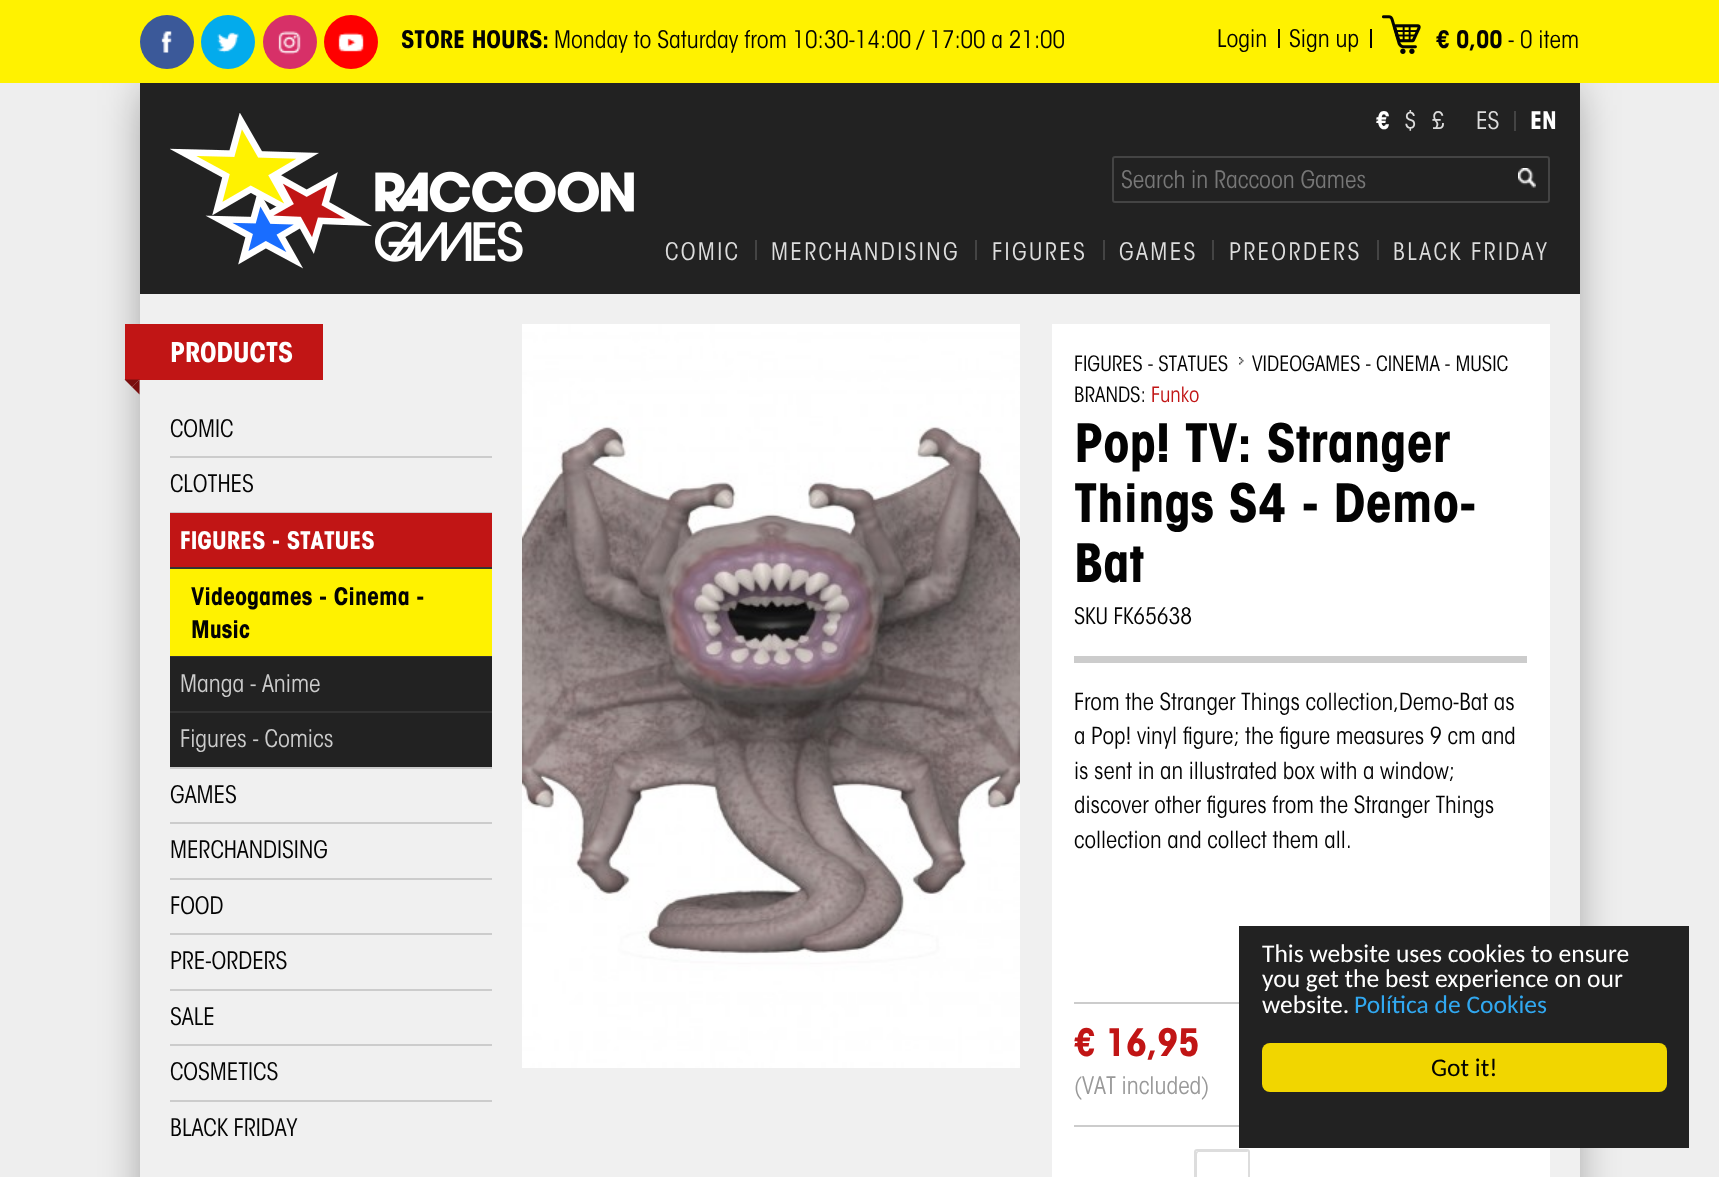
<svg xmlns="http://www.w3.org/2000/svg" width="1719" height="1177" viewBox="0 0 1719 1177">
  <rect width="100%" height="100%" fill="#eee"/>
  <path d="M147 90h1425v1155H147z" fill="#00000066" filter="blur(22.5px)"/>
  <path d="M0 0h1719v83H0z" fill="#fff200"/>
  <circle cx="167" cy="42" r="27" fill="#3b5999"/>
  <image x="161" y="31" width="11" height="22" href="img/1.png"/>
  <circle cx="228" cy="42" r="27" fill="#03abec"/>
  <image x="217" y="32" width="22" height="21" href="img/2.png"/>
  <circle cx="290" cy="42" r="27" fill="#d73068"/>
  <image x="278" y="31" width="23" height="24" href="img/3.png"/>
  <circle cx="351" cy="42" r="27" fill="#f00"/>
  <image x="338" y="32" width="26" height="20" href="img/4.png"/>
  <path d="M1278 29h2v19H1278z" fill="#030303"/>
  <path d="M1370 29h2v19H1370z" fill="#030303"/>
  <image x="1382" y="15" width="39" height="39" href="img/5.png"/>
  <path d="M140 294h1440v883H140z" fill="#f0f0f0"/>
  <path d="M140 83h1440v211H140z" fill="#222"/>
  <image x="170" y="113" width="464" height="156" href="img/6.png"/>
  <image x="1518" y="168" width="18" height="20" href="img/7.png"/>
  <rect x="1113" y="157" width="436" height="45" rx="2" fill="none" stroke="#444" stroke-width="2"/>
  <path d="M1514 111h2v20H1514z" fill="#444"/>
  <path d="M755 240h2v20H755z" fill="#444"/>
  <path d="M975 240h2v20H975z" fill="#444"/>
  <path d="M1103 240h2v20H1103z" fill="#444"/>
  <path d="M1212 240h2v20H1212z" fill="#444"/>
  <path d="M1377 240h2v20H1377z" fill="#444"/>
  <path d="M125 324h198v56H125z" fill="#c11515"/>
  <path d="M124.5 379.5H139.5L132 387Z" fill="#7a0e0e"/>
  <path d="M139.5 379.5V394.5L132 387Z" fill="#7a0e0e"/>
  <path d="M170 456h322v2H170z" fill="#ccc"/>
  <path d="M170 512h322v1H170z" fill="#ccc"/>
  <path d="M170 513h322v54H170z" fill="#c11515"/>
  <path d="M170 567h322v2H170z" fill="#333"/>
  <path d="M170 569h322v87H170z" fill="#fff200"/>
  <path d="M170 656h322v1H170z" fill="#333"/>
  <path d="M170 657h322v54H170z" fill="#222"/>
  <path d="M170 711h322v2H170z" fill="#333"/>
  <path d="M170 713h322v54H170z" fill="#222"/>
  <path d="M170 767h322v2H170z" fill="#ccc"/>
  <path d="M170 822h322v2H170z" fill="#ccc"/>
  <path d="M170 878h322v2H170z" fill="#ccc"/>
  <path d="M170 933h322v2H170z" fill="#ccc"/>
  <path d="M170 989h322v2H170z" fill="#ccc"/>
  <path d="M170 1044h322v2H170z" fill="#ccc"/>
  <path d="M170 1100h322v2H170z" fill="#ccc"/>
  <image x="522" y="324" width="498" height="744" href="img/8.png"/>
  <path d="M1052 324h498v853H1052z" fill="#fff"/>
  <path d="M1074 656h453v7H1074z" fill="#ccc"/>
  <image x="1239" y="357" width="5" height="8" href="img/9.png"/>
  <path d="M1074 1002h165v2H1074z" fill="#ccc"/>
  <path d="M1074 1125h165v2H1074z" fill="#ccc"/>
  <path d="M1198 1152H1248C1248 1151 1247 1151 1246 1151H1198C1197 1151 1196 1152 1196 1152V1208C1196 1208 1196 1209 1197 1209V1154Z" fill="#ddd"/>
  <rect x="1195" y="1150" width="54" height="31" rx="2" fill="none" stroke="#ddd" stroke-width="2"/>
  <path d="M1239 926h450v222H1239z" fill="#222"/>
  <rect x="1262" y="1043" width="405" height="49" rx="8" fill="#f1d600"/>
  <text x="401" y="48" font-family="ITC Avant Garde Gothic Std" font-size="24" font-weight="bold" fill="#030303">STORE HOURS:</text>
  <g font-family="ITC Avant Garde Gothic Std" font-size="24" font-weight="300" fill="#030303">
    <text x="554" y="48">Monday to Saturday from 10:30-14:00 / 17:00 a 21:00</text>
    <text x="1217" y="47">Login</text>
    <text x="1289" y="47">Sign up</text>
  </g>
  <text x="1436" y="48" font-family="ITC Avant Garde Gothic Std" font-size="24" font-weight="bold" fill="#030303">€ 0,00</text>
  <text x="1508" y="48" font-family="ITC Avant Garde Gothic Std" font-size="24" font-weight="300" fill="#030303">- 0 item</text>
  <text x="1121" y="188" font-family="ITC Avant Garde Gothic Std" font-size="24" font-weight="300" fill="#777">Search in Raccoon Games</text>
  <text x="1376" y="129" font-family="ITC Avant Garde Gothic Std" font-size="24" font-weight="bold" fill="#fff">€</text>
  <g font-family="ITC Avant Garde Gothic Std" font-size="24" font-weight="300" fill="#ddd">
    <text x="1404" y="129">$</text>
    <text x="1432" y="129">£</text>
    <text x="1476" y="129">ES</text>
  </g>
  <text x="1530" y="129" font-family="ITC Avant Garde Gothic Std" font-size="24" font-weight="bold" fill="#fff">EN</text>
  <g font-family="ITC Avant Garde Gothic Std" font-size="24" font-weight="300" letter-spacing="2.4" fill="#ddd">
    <text x="665" y="260">COMIC</text>
    <text x="771" y="260">MERCHANDISING</text>
    <text x="992" y="260">FIGURES</text>
    <text x="1119" y="260">GAMES</text>
    <text x="1229" y="260">PREORDERS</text>
    <text x="1393" y="260">BLACK FRIDAY</text>
  </g>
  <text x="170" y="362" font-family="ITC Avant Garde Gothic Std" font-size="27" font-weight="bold" fill="#fff">PRODUCTS</text>
  <g font-family="ITC Avant Garde Gothic Std" font-size="24" font-weight="300" fill="#030303">
    <text x="170" y="437">COMIC</text>
    <text x="170" y="492">CLOTHES</text>
  </g>
  <text x="180" y="549" font-family="ITC Avant Garde Gothic Std" font-size="24" font-weight="bold" fill="#fff">FIGURES - STATUES</text>
  <g font-family="ITC Avant Garde Gothic Std" font-size="24" font-weight="bold" fill="#030303">
    <text x="191" y="605">Videogames - Cinema -</text>
    <text x="191" y="638">Music</text>
  </g>
  <g font-family="ITC Avant Garde Gothic Std" font-size="24" font-weight="300" fill="#ccc">
    <text x="180" y="692">Manga - Anime</text>
    <text x="180" y="747">Figures - Comics</text>
  </g>
  <g font-family="ITC Avant Garde Gothic Std" font-size="24" font-weight="300" fill="#030303">
    <text x="170" y="803">GAMES</text>
    <text x="170" y="858">MERCHANDISING</text>
    <text x="170" y="914">FOOD</text>
    <text x="170" y="969">PRE-ORDERS</text>
    <text x="170" y="1025">SALE</text>
    <text x="170" y="1080">COSMETICS</text>
    <text x="170" y="1136">BLACK FRIDAY</text>
  </g>
  <g font-family="ITC Avant Garde Gothic Std" font-size="21" font-weight="300" fill="#030303">
    <text x="1074" y="371">FIGURES - STATUES</text>
    <text x="1252" y="371">VIDEOGAMES - CINEMA - MUSIC</text>
    <text x="1074" y="402">BRANDS:</text>
  </g>
  <text x="1151" y="402" font-family="ITC Avant Garde Gothic Std" font-size="21" font-weight="300" fill="#c11515">Funko</text>
  <g font-family="ITC Avant Garde Gothic Std" font-size="52.5" font-weight="bold" fill="#030303">
    <text x="1074" y="462">Pop! TV: Stranger</text>
    <text x="1074" y="522">Things S4 - Demo-</text>
    <text x="1074" y="582">Bat</text>
  </g>
  <text x="1074" y="624" font-family="ITC Avant Garde Gothic Std" font-size="22.5" font-weight="300" fill="#030303">SKU FK65638</text>
  <g font-family="ITC Avant Garde Gothic Std" font-size="23.4" font-weight="300" fill="#030303">
    <text x="1074" y="710">From the Stranger Things collection,Demo-Bat as</text>
    <text x="1074" y="744">a Pop! vinyl figure; the figure measures 9 cm and</text>
    <text x="1074" y="779">is sent in an illustrated box with a window;</text>
    <text x="1074" y="813">discover other figures from the Stranger Things</text>
    <text x="1074" y="848">collection and collect them all.</text>
  </g>
  <text x="1074" y="1056" font-family="ITC Avant Garde Gothic Std" font-size="37.5" font-weight="bold" fill="#c11515">€ 16,95</text>
  <text x="1074" y="1094" font-family="ITC Avant Garde Gothic Std" font-size="24" font-weight="300" fill="#999">(VAT included)</text>
  <g font-family="Carlito" font-size="25.5" fill="#fff">
    <text x="1262" y="962">This website uses cookies to ensure</text>
    <text x="1262" y="987">you get the best experience on our</text>
    <text x="1262" y="1013">website.</text>
  </g>
  <text x="1354" y="1013" font-family="Carlito" font-size="25.5" fill="#31a8f0">Política de Cookies</text>
  <text x="1431" y="1076" font-family="Carlito" font-size="25.5" fill="#030303">Got it!</text>
</svg>
